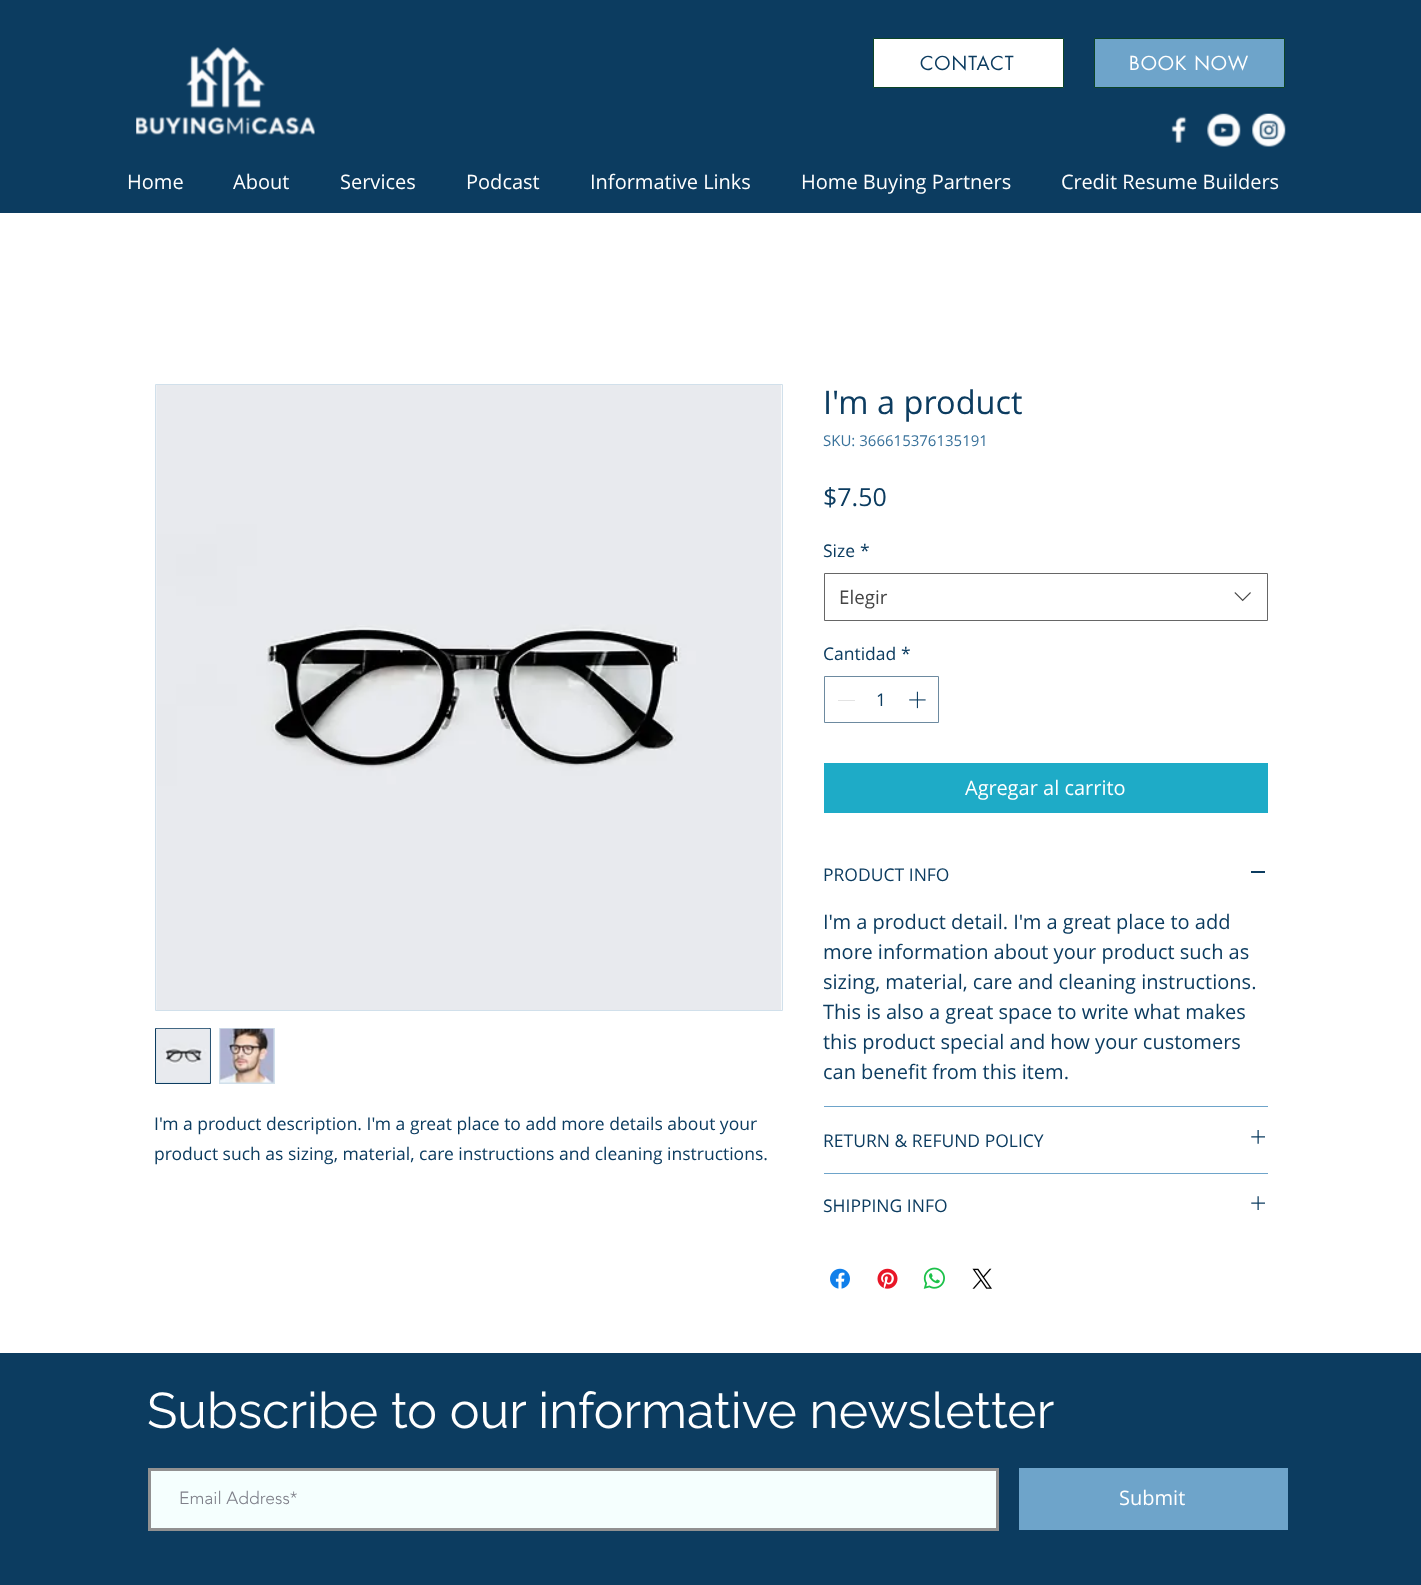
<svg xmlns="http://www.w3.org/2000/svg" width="1421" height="1585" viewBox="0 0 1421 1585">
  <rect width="100%" height="100%" fill="#fff"/>
  <path d="M0 0h1421v213H0z" fill="#0c3c60"/>
  <image x="136" y="47" width="179" height="88" href="img/1.png"/>
  <path d="M873.5 38.5h190v49H873.5z" fill="#fff" stroke="#0c4426"/>
  <path d="M1094.5 38.5h190v49H1094.5z" fill="#6ea4ca" stroke="#0c4426"/>
  <image x="1171" y="116" width="16" height="27" href="img/2.png"/>
  <image x="1207" y="113" width="34" height="34" href="img/3.png"/>
  <image x="1252" y="113" width="34" height="34" href="img/4.png"/>
  <path d="M155.5 384.5h627v626H155.5z" fill="none" stroke="#d1e0eb"/>
  <image x="156" y="385" width="626" height="625" href="img/5.png"/>
  <path d="M155.5 1028.5h55v55H155.5z" fill="#d1e0eb" stroke="#0c3c60"/>
  <image x="156" y="1028" width="55" height="55" href="img/6.png"/>
  <path d="M219 1028h56v56H219z" fill="#d1e0eb"/>
  <image x="220" y="1028" width="54" height="55" href="img/7.png"/>
  <path d="M824.5 573.5h443v47H824.5z" fill="none" stroke="#666"/>
  <image x="1234" y="592" width="17" height="10" href="img/8.png"/>
  <path d="M824.5 676.5h114v46H824.5z" fill="none" stroke="#6d8aa0"/>
  <path d="M838 700h17v1H838z" fill="#e3e3e3"/>
  <image x="909" y="691" width="17" height="18" href="img/9.png"/>
  <path d="M824 763h444v50H824z" fill="#1eabc7"/>
  <path d="M824 1106h444v1H824z" fill="#6ea4ca"/>
  <path d="M1251 871h14v2H1251z" fill="#0c3c60"/>
  <path d="M824 1173h444v1H824z" fill="#6ea4ca"/>
  <image x="1251" y="1130" width="14" height="14" href="img/10.png"/>
  <image x="1251" y="1196" width="14" height="14" href="img/11.png"/>
  <image x="830" y="1268" width="20" height="21" href="img/12.png"/>
  <image x="877" y="1268" width="21" height="21" href="img/13.png"/>
  <image x="923" y="1267" width="22" height="22" href="img/14.png"/>
  <image x="972" y="1268" width="20" height="21" href="img/15.png"/>
  <path d="M0 1353h1421v232H0z" fill="#0c3c60"/>
  <path d="M149.5 1469.5h848v60H149.5z" fill="#f5fffe" stroke="#919191" stroke-width="3"/>
  <path d="M1019 1468h269v62H1019z" fill="#6ea4ca"/>
  <text x="920" y="70" font-family="futura" font-size="18.75" letter-spacing="1" fill="#0c3c60">CONTACT</text>
  <text x="1129" y="70" font-family="futura" font-size="18.75" letter-spacing="1" fill="#fff">BOOK NOW</text>
  <g font-family="Open Sans" font-size="20" fill="#fff">
    <text x="127" y="189">Home</text>
    <text x="233" y="189">About</text>
    <text x="340" y="189">Services</text>
    <text x="466" y="189">Podcast</text>
    <text x="590" y="189">Informative Links</text>
    <text x="801" y="189">Home Buying Partners</text>
    <text x="1061" y="189">Credit Resume Builders</text>
  </g>
  <g font-family="Open Sans" font-size="17.5" fill="#0c3c60">
    <text x="154" y="1130">I'm a product description. I'm a great place to add more details about your</text>
    <text x="154" y="1160">product such as sizing, material, care instructions and cleaning instructions.</text>
  </g>
  <text x="823" y="414" font-family="Open Sans" font-size="32.5" fill="#0c3c60">I'm a product</text>
  <text x="823" y="446" font-family="Open Sans" font-size="15" fill="#39729b">SKU: 366615376135191</text>
  <text x="823" y="506" font-family="Open Sans" font-size="25" fill="#0c3c60">$7.50</text>
  <g font-family="Open Sans" font-size="17.5" fill="#0c3c60">
    <text x="823" y="557">Size</text>
    <text x="860" y="557">*</text>
  </g>
  <text x="839" y="604" font-family="Open Sans" font-size="18.75" fill="#444">Elegir</text>
  <g font-family="Open Sans" font-size="17.5" fill="#0c3c60">
    <text x="823" y="660">Cantidad</text>
    <text x="901" y="660">*</text>
    <text x="876" y="706">1</text>
  </g>
  <text x="965" y="795" font-family="Open Sans" font-size="20" fill="#fff">Agregar al carrito</text>
  <text x="823" y="881" font-family="Open Sans" font-size="17.5" fill="#0c3c60">PRODUCT INFO</text>
  <g font-family="Open Sans" font-size="20" fill="#0c3c60">
    <text x="823" y="929">I'm a product detail. I'm a great place to add</text>
    <text x="823" y="959">more information about your product such as</text>
    <text x="823" y="989">sizing, material, care and cleaning instructions.</text>
    <text x="823" y="1019">This is also a great space to write what makes</text>
    <text x="823" y="1049">this product special and how your customers</text>
    <text x="823" y="1079">can benefit from this item.</text>
  </g>
  <g font-family="Open Sans" font-size="17.5" fill="#0c3c60">
    <text x="823" y="1147">RETURN &amp; REFUND POLICY</text>
    <text x="823" y="1212">SHIPPING INFO</text>
  </g>
  <text x="147" y="1428" font-family="Raleway" font-size="50" fill="#fff">Subscribe to our informative newsletter</text>
  <text x="179" y="1504" font-family="'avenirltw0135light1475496'" font-size="17.5" font-weight="300" fill="#7f808a">Email Address*</text>
  <text x="1119" y="1505" font-family="Open Sans" font-size="20" fill="#fff">Submit</text>
</svg>
